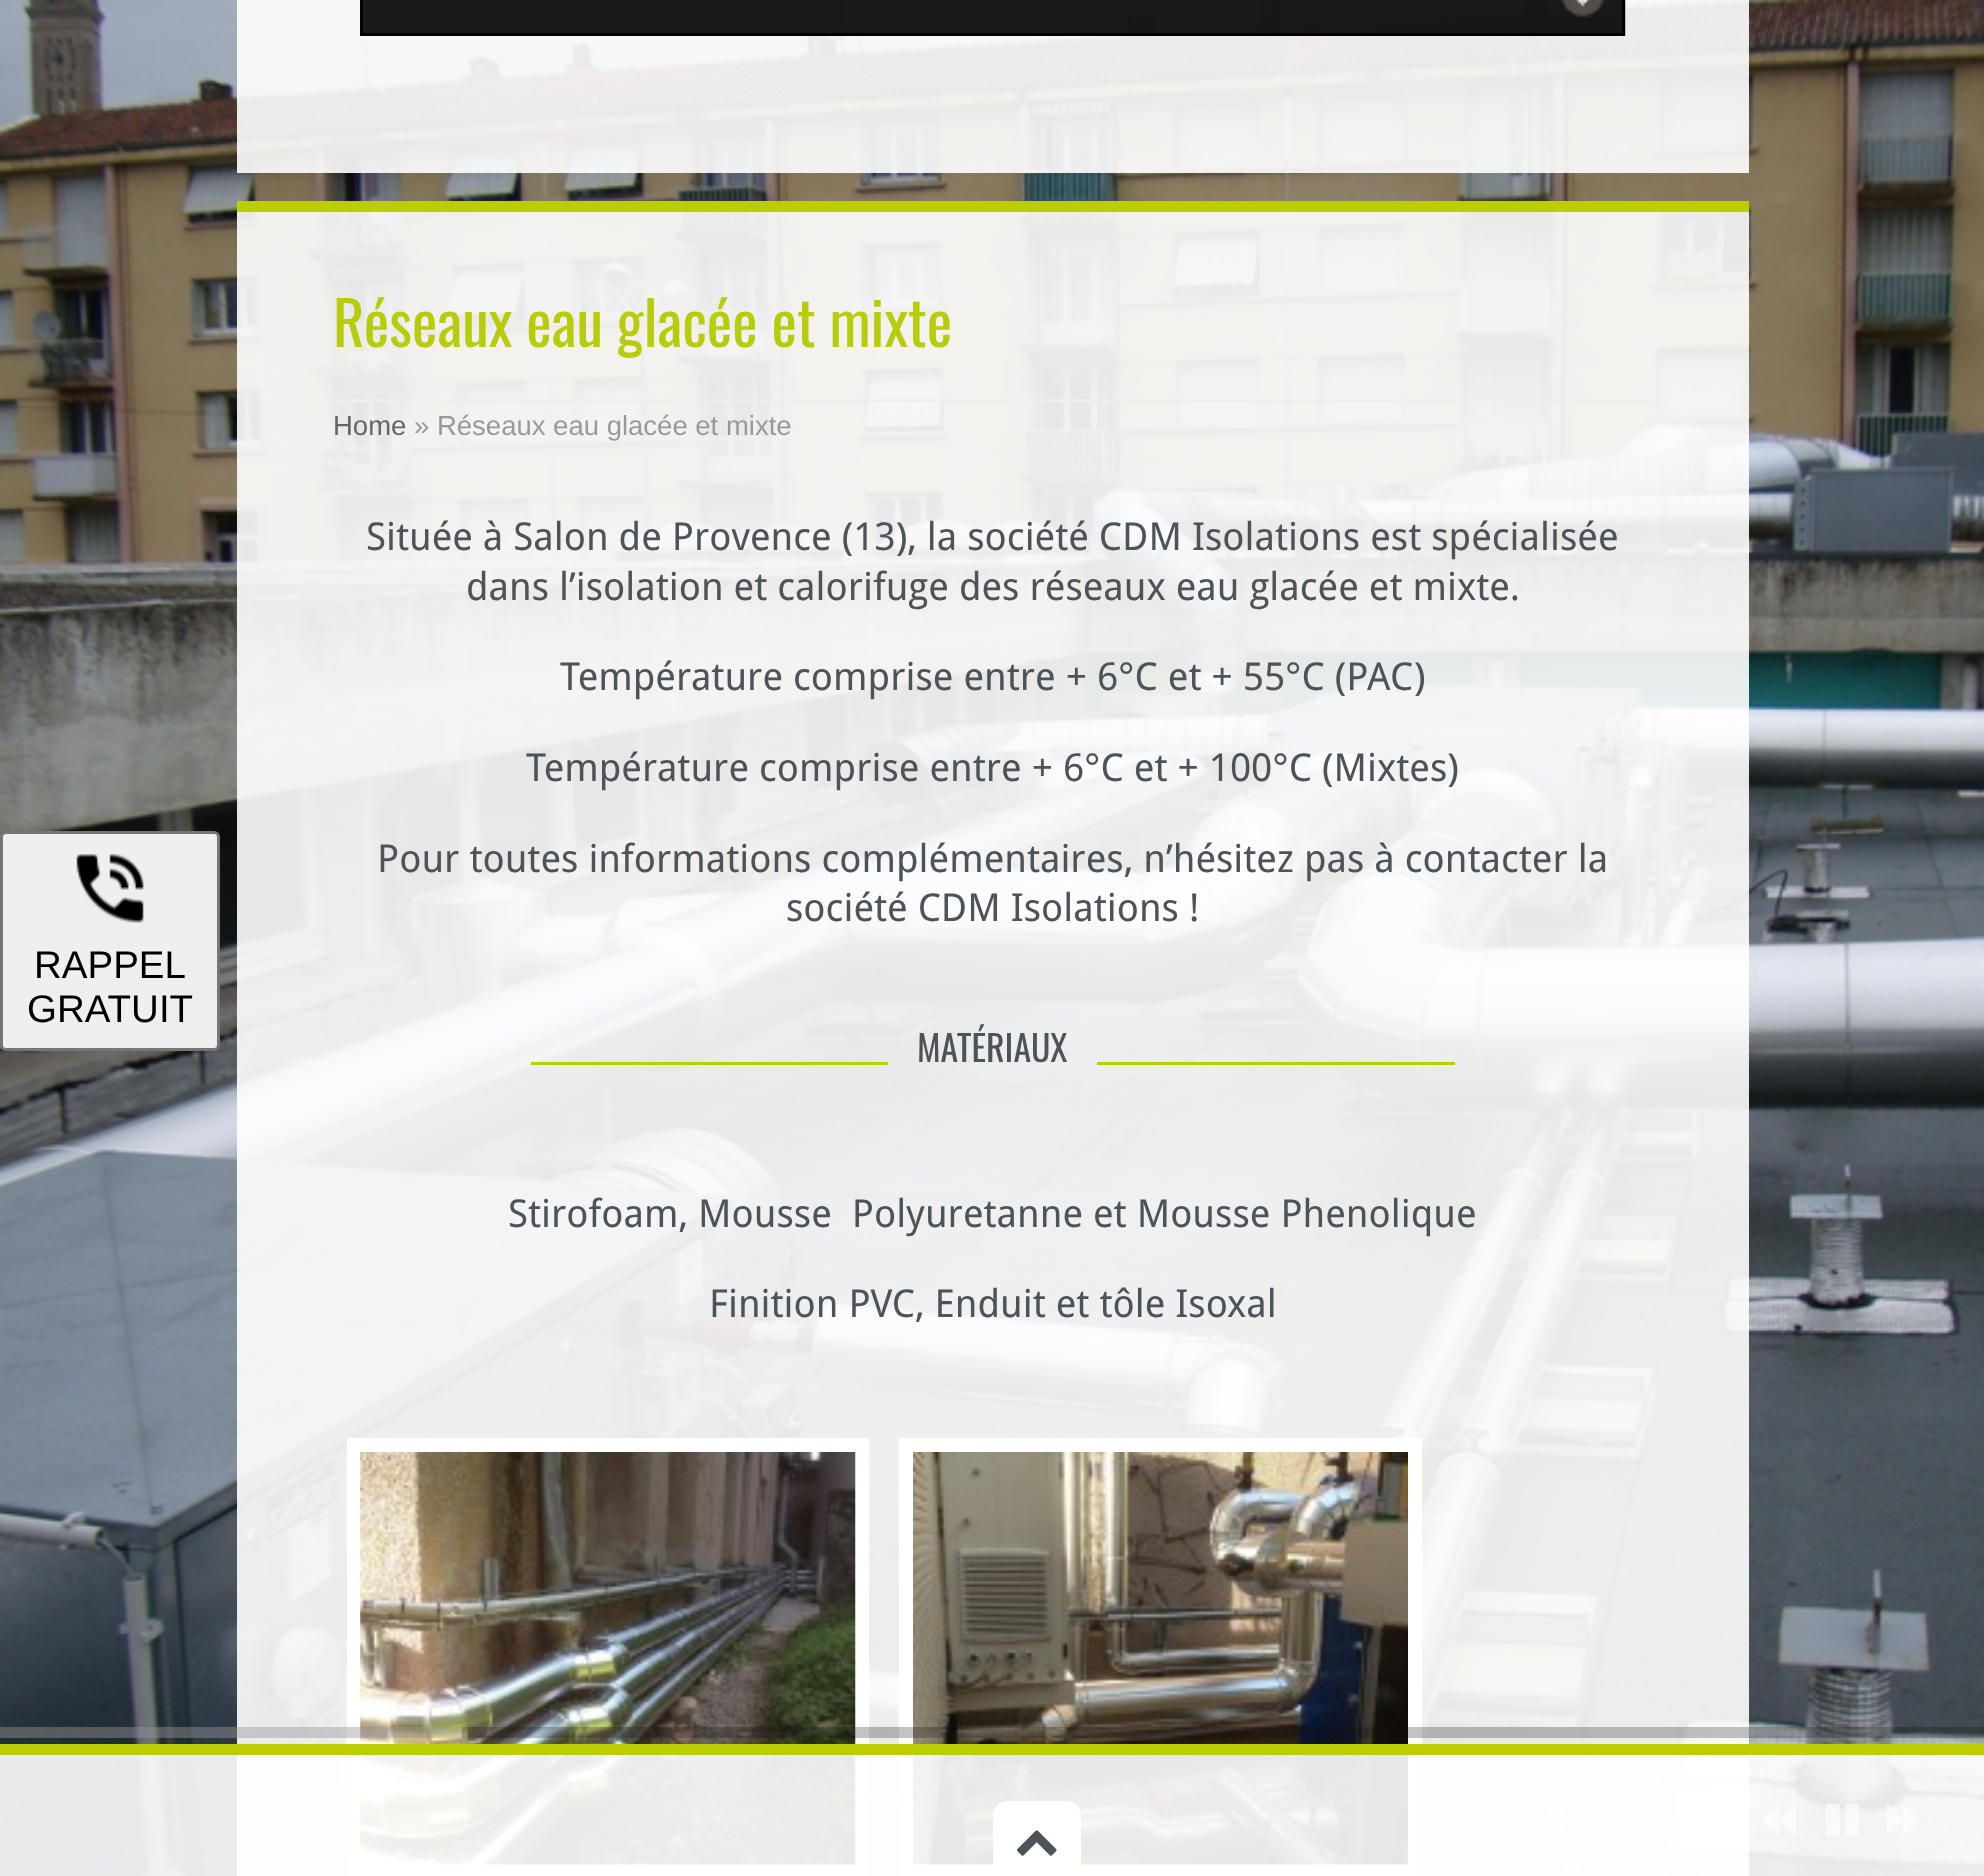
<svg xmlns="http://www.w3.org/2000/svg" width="1984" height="1876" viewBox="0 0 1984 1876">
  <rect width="100%" height="100%" fill="#fff"/>
  <image x="0" y="0" width="1984" height="1876" href="img/2.png"/>
  <path d="M237 0h1512v173H237z" fill="#ffffffe6"/>
  <image x="363" y="0" width="1263" height="36" href="img/1.png"/>
  <path d="M361.5 -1.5h1262v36H361.5z" fill="none" stroke="#000" stroke-width="3"/>
  <rect x="1.5" y="832.5" width="217" height="217" rx="4.5" fill="#efefef" stroke="#767676" stroke-width="3"/>
  <image x="76" y="854" width="68" height="69" href="img/3.png"/>
  <path d="M237 212h1512v1664H237z" fill="#ffffffe6"/>
  <path d="M237 201h1512v11H237z" fill="#bace03"/>
  <path d="M333 399h1320v3H333z" fill="#eee"/>
  <path d="M531 1062h357v3H531z" fill="#bace03"/>
  <path d="M1097 1062h358v3H1097z" fill="#bace03"/>
  <path d="M354 1445h508v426H354z" fill="none" stroke="#fff" stroke-width="14"/>
  <image x="360" y="1452" width="496" height="413" href="img/4.png"/>
  <path d="M906 1445h509v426H906z" fill="none" stroke="#fff" stroke-width="14"/>
  <image x="913" y="1452" width="495" height="413" href="img/5.png"/>
  <path d="M0 1727h1984v11H0z" fill="#10101040"/>
  <image x="0" y="1727" width="463" height="11" href="img/6.png"/>
  <path d="M0 1755h1984v121H0z" fill="#ffffffe6"/>
  <path d="M0 1744h1984v11H0z" fill="#bace03"/>
  <image x="1763" y="1805" width="33" height="32" href="img/7.png"/>
  <image x="1826" y="1804" width="33" height="33" href="img/8.png"/>
  <image x="1886" y="1804" width="33" height="33" href="img/9.png"/>
  <path d="M1007 1801H1067C1074.5 1801 1081 1807.5 1081 1815V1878H993V1815C993 1807.5 999.5 1801 1007 1801Z" fill="#fff"/>
  <image x="1017" y="1830" width="40" height="26" href="img/10.png"/>
  <g font-family="Liberation Sans" font-size="38.5" fill="#000">
    <text x="34" y="978">RAPPEL</text>
    <text x="27" y="1022">GRATUIT</text>
  </g>
  <text x="333" y="347" font-family="Oswald" font-size="60.5" fill="#b8cc0a">Réseaux eau glacée et mixte</text>
  <text x="333" y="435" font-family="Liberation Sans" font-size="27.5" fill="#666">Home</text>
  <text x="414" y="435" font-family="Liberation Sans" font-size="27.5" fill="#999">» Réseaux eau glacée et mixte</text>
  <g font-family="Droid Sans" font-size="38.5" fill="#4d5359">
    <text x="366" y="550">Située à Salon de Provence (13), la société CDM Isolations est spécialisée</text>
    <text x="466" y="600">dans l’isolation et calorifuge des réseaux eau glacée et mixte.</text>
    <text x="560" y="690">Température comprise entre + 6°C et + 55°C (PAC)</text>
    <text x="526" y="781">Température comprise entre + 6°C et + 100°C (Mixtes)</text>
    <text x="377" y="872">Pour toutes informations complémentaires, n’hésitez pas à contacter la</text>
    <text x="786" y="921">société CDM Isolations !</text>
  </g>
  <text x="917" y="1062" font-family="Oswald" font-size="35.75" fill="#4d5359">MATÉRIAUX</text>
  <g font-family="Droid Sans" font-size="38.5" fill="#4d5359">
    <text x="508" y="1227" xml:space="preserve">Stirofoam, Mousse  Polyuretanne et Mousse Phenolique</text>
    <text x="709" y="1317">Finition PVC, Enduit et tôle Isoxal</text>
  </g>
</svg>
